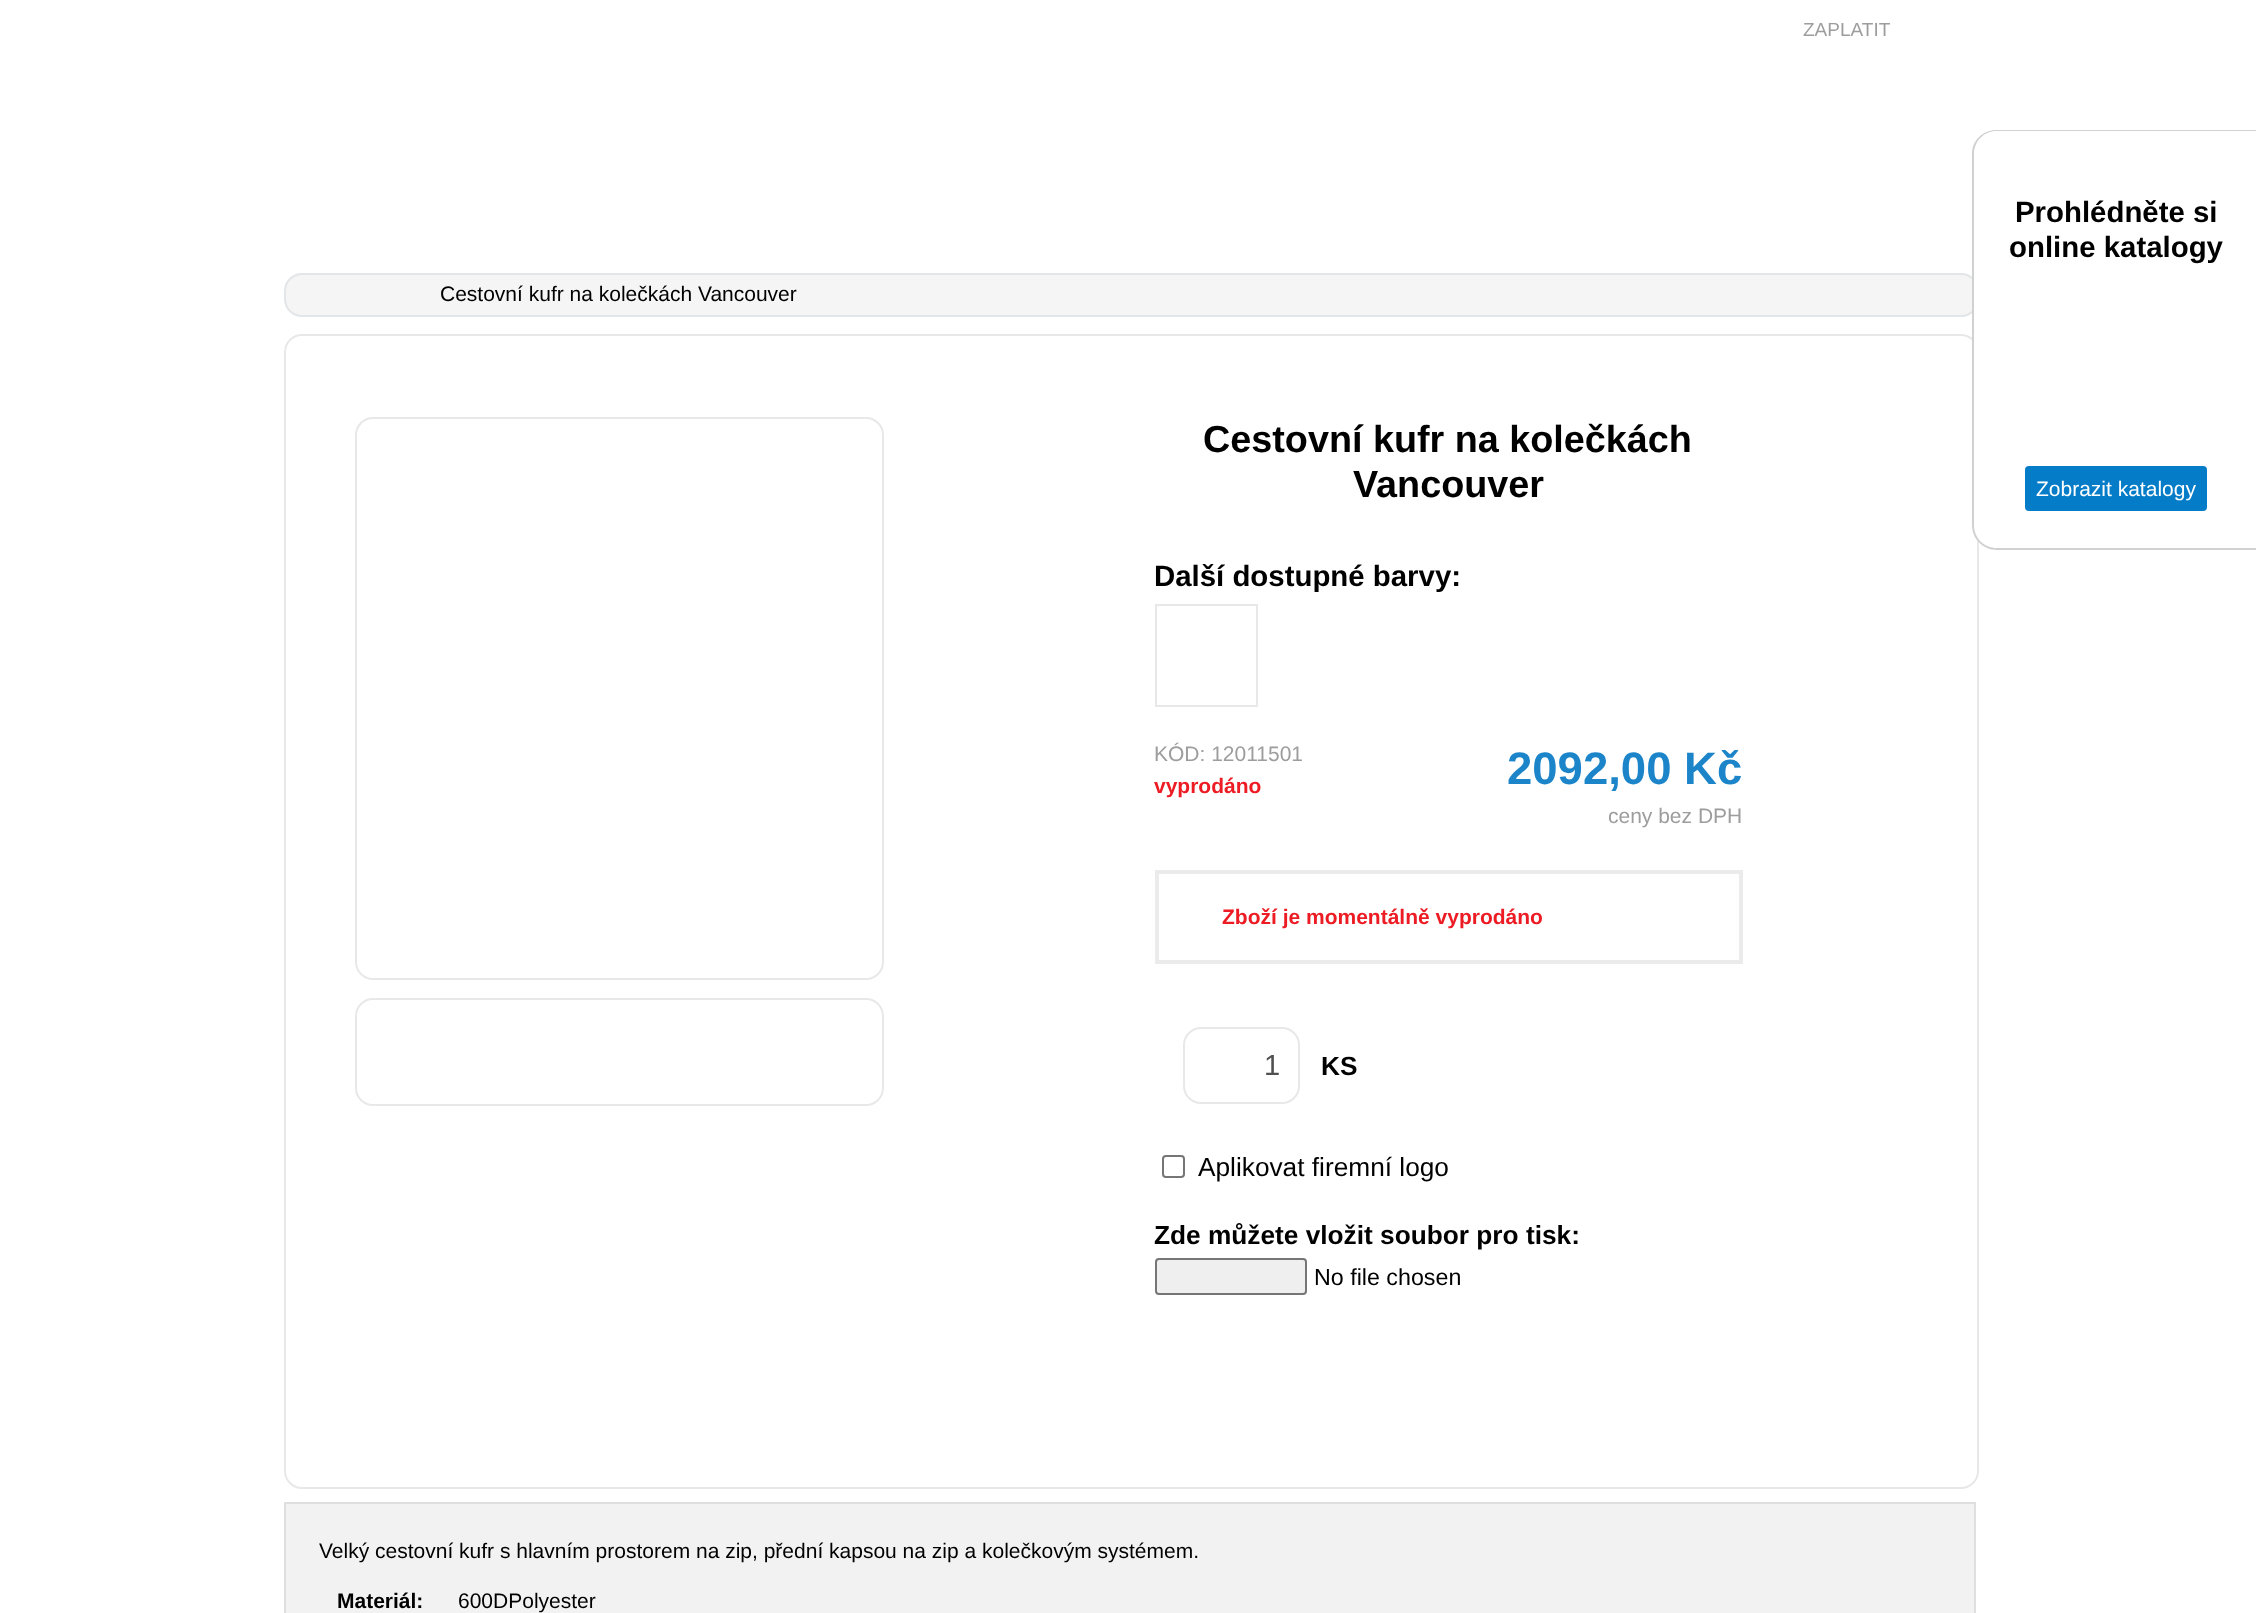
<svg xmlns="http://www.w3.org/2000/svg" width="2256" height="1613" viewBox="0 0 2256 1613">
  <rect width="100%" height="100%" fill="#fff"/>
  <rect x="284" y="273" width="1695" height="44" rx="18" fill="#f5f5f5"/>
  <rect x="285" y="274" width="1693" height="42" rx="17" fill="none" stroke="#dcdfe2b3" stroke-width="2"/>
  <rect x="285" y="335" width="1693" height="1153" rx="17" fill="none" stroke="#e9e8e8" stroke-width="2"/>
  <rect x="356" y="418" width="527" height="561" rx="17" fill="none" stroke="#e9e8e8" stroke-width="2"/>
  <rect x="356" y="999" width="527" height="106" rx="17" fill="none" stroke="#e9e8e8" stroke-width="2"/>
  <path d="M1156 605h101v101H1156z" fill="none" stroke="#e9e8e8" stroke-width="2"/>
  <path d="M1157 872h584v90H1157z" fill="none" stroke="#ebebeb" stroke-width="4"/>
  <rect x="1184" y="1028" width="115" height="75" rx="17" fill="none" stroke="#e9e8e8" stroke-width="2"/>
  <rect x="1163" y="1156" width="21" height="21" rx="3" fill="none" stroke="#767676" stroke-width="2"/>
  <rect x="1156" y="1259" width="150" height="35" rx="3" fill="#efefef" stroke="#767676" stroke-width="2"/>
  <path d="M1974 1503h2v110H1974z" fill="#dfdfdf"/>
  <path d="M284 1503h2v110H284z" fill="#dfdfdf"/>
  <path d="M284 1502h1692v2H284z" fill="#dfdfdf"/>
  <path d="M286 1504h1688v109H286z" fill="#f2f2f2"/>
  <path d="M1997 130H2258V550H1997C1983 550 1972 539 1972 525V155C1972 141 1983 130 1997 130Z" fill="#fff"/>
  <path d="M1997 130H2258V550H1997C1983 550 1972 539 1972 525V154C1972 140 1983 130 1997 130ZM1997 131H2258V548H1997C1984 548 1974 538 1974 525V154C1974 141 1984 131 1997 131Z" fill="#d2d1d1" fill-rule="evenodd"/>
  <rect x="2025" y="466" width="182" height="45" rx="4" fill="#057cc7"/>
  <text x="1803" y="36" font-family="Liberation Sans" font-size="19" fill="#9d9d9d">ZAPLATIT</text>
  <text x="440" y="301" font-family="Liberation Sans" font-size="21" fill="#000">Cestovní kufr na kolečkách Vancouver</text>
  <g font-family="Liberation Sans" font-size="37.75" font-weight="bold" fill="#000">
    <text x="1203" y="452">Cestovní kufr na kolečkách</text>
    <text x="1353" y="497">Vancouver</text>
  </g>
  <text x="1154" y="586" font-family="Liberation Sans" font-size="29.4" font-weight="bold" fill="#000">Další dostupné barvy:</text>
  <text x="1154" y="761" font-family="Liberation Sans" font-size="21" fill="#9d9d9d">KÓD: 12011501</text>
  <text x="1154" y="793" font-family="Liberation Sans" font-size="21" font-weight="bold" fill="#ed1c24">vyprodáno</text>
  <text x="1507" y="784" font-family="Liberation Sans" font-size="45.5" font-weight="bold" fill="#1c85ca">2092,00 Kč</text>
  <text x="1608" y="823" font-family="Liberation Sans" font-size="21" fill="#9d9d9d">ceny bez DPH</text>
  <text x="1222" y="924" font-family="Liberation Sans" font-size="21" font-weight="bold" fill="#ed1c24">Zboží je momentálně vyprodáno</text>
  <text x="1264" y="1075" font-family="Liberation Sans" font-size="29" fill="#505050">1</text>
  <text x="1321" y="1075" font-family="Liberation Sans" font-size="26.25" font-weight="bold" fill="#000">KS</text>
  <text x="1198" y="1176" font-family="Liberation Sans" font-size="26.25" fill="#000">Aplikovat firemní logo</text>
  <text x="1154" y="1244" font-family="Liberation Sans" font-size="26.25" font-weight="bold" fill="#000">Zde můžete vložit soubor pro tisk:</text>
  <text x="1314" y="1285" font-family="Liberation Sans" font-size="23.25" fill="#000">No file chosen</text>
  <text x="319" y="1558" font-family="Liberation Sans" font-size="21" fill="#000">Velký cestovní kufr s hlavním prostorem na zip, přední kapsou na zip a kolečkovým systémem.</text>
  <text x="337" y="1608" font-family="Liberation Sans" font-size="21" font-weight="bold" fill="#000">Materiál:</text>
  <text x="458" y="1608" font-family="Liberation Sans" font-size="21" fill="#000">600DPolyester</text>
  <g font-family="Liberation Sans" font-size="29.4" font-weight="bold" fill="#000">
    <text x="2015" y="222">Prohlédněte si</text>
    <text x="2009" y="257">online katalogy</text>
  </g>
  <text x="2036" y="496" font-family="Liberation Sans" font-size="21" fill="#fff">Zobrazit katalogy</text>
</svg>
